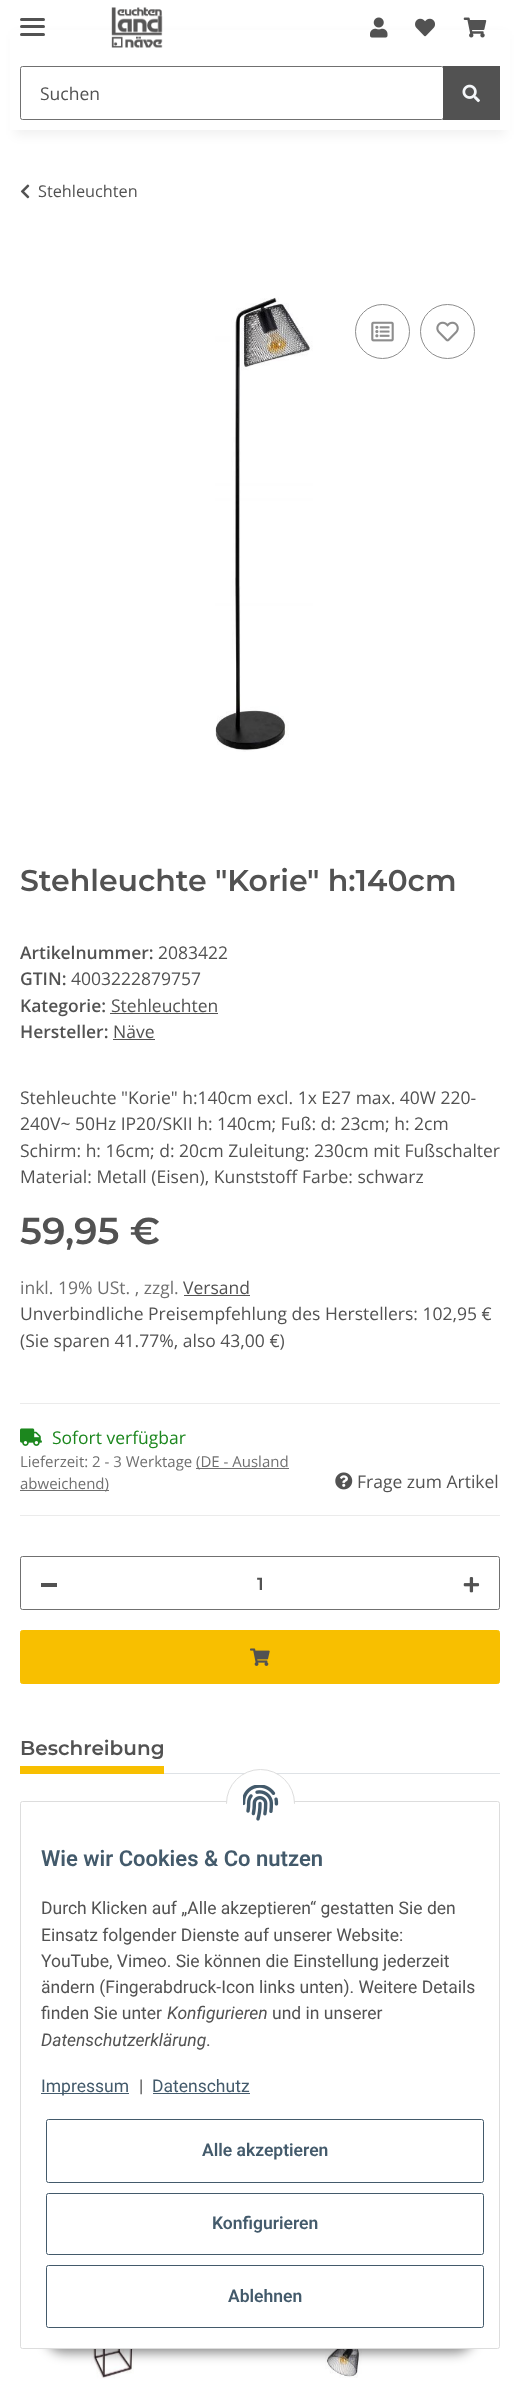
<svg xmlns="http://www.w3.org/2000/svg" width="520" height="2388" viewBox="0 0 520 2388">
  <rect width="100%" height="100%" fill="#fff"/>
  <path d="M15 35h490v100H15z" fill="#0000000f" filter="blur(5.5px)"/>
  <path d="M10 30h500v100H10z" fill="#fff"/>
  <rect x="20" y="25" width="25" height="3" rx="1.5" fill="#525252"/>
  <rect x="20" y="18" width="25" height="3" rx="1.5" fill="#525252"/>
  <rect x="20" y="33" width="25" height="3" rx="1.5" fill="#525252"/>
  <image x="111" y="7" width="52" height="41" href="img/1.png"/>
  <image x="370" y="17" width="18" height="21" href="img/2.png"/>
  <image x="415" y="18" width="20" height="19" href="img/3.png"/>
  <image x="463" y="17" width="24" height="21" href="img/4.png"/>
  <rect x="20.5" y="66.5" width="423" height="53" rx="2" fill="none" stroke="#707070"/>
  <path d="M443 66h57v54H443z" fill="#525252"/>
  <image x="462" y="84" width="18" height="19" href="img/5.png"/>
  <image x="20" y="184" width="10" height="15" href="img/6.png"/>
  <image x="215" y="297" width="98" height="455" href="img/7.png"/>
  <circle cx="382.5" cy="331.5" r="27" fill="none" stroke="#8d8d8d"/>
  <image x="371" y="321" width="23" height="21" href="img/8.png"/>
  <circle cx="447.5" cy="331.5" r="27" fill="none" stroke="#8d8d8d"/>
  <image x="436" y="321" width="23" height="21" href="img/9.png"/>
  <path d="M110 1013h108v1H110z" fill="#525252"/>
  <path d="M113 1039h42v1H113z" fill="#525252"/>
  <path d="M184 1295h66v1H184z" fill="#525252"/>
  <path d="M20 1403h480v1H20z" fill="#ebebeb"/>
  <path d="M20 1515h480v1H20z" fill="#ebebeb"/>
  <image x="20" y="1428" width="22" height="18" href="img/10.png"/>
  <path d="M196 1468h93v1H196z" fill="#707070"/>
  <path d="M20 1490h89v1H20z" fill="#707070"/>
  <image x="335" y="1472" width="18" height="18" href="img/11.png"/>
  <rect x="20.5" y="1556.5" width="479" height="53" rx="2" fill="none" stroke="#707070"/>
  <path d="M41 1583h16v4H41z" fill="#525252"/>
  <image x="463" y="1577" width="17" height="16" href="img/12.png"/>
  <rect x="20.5" y="1630.5" width="479" height="53" rx="2" fill="#f8bf00" stroke="#f8bf00"/>
  <image x="250" y="1648" width="20" height="18" href="img/13.png"/>
  <path d="M164 1773h336v1H164z" fill="#dee2e6"/>
  <path d="M20 1766h144v8H20z" fill="#f8bf00"/>
  <image x="91" y="2349" width="48" height="30" href="img/14.png"/>
  <image x="325" y="2349" width="37" height="29" href="img/15.png"/>
  <rect x="45" y="2313" width="430" height="40" rx="20" fill="#00000073" filter="blur(6px)"/>
  <rect x="20.5" y="1801.5" width="479" height="547" rx="2" fill="#fff" stroke="#ddd"/>
  <circle cx="260.5" cy="1803.5" r="34" fill="#fff" stroke="#ddd"/>
  <path d="M226 1804h69v34H226z" fill="#fff"/>
  <image x="243" y="1785" width="36" height="36" href="img/16.png"/>
  <path d="M41 2093h88v1H41z" fill="#435a6b"/>
  <path d="M153 2093h97v1H153z" fill="#435a6b"/>
  <rect x="46.5" y="2119.5" width="437" height="63" rx="2" fill="none" stroke="#435a6b"/>
  <rect x="46.5" y="2193.5" width="437" height="61" rx="2" fill="none" stroke="#435a6b"/>
  <rect x="46.5" y="2265.5" width="437" height="62" rx="2" fill="none" stroke="#435a6b"/>
  <text x="40" y="100" font-family="Open Sans" font-size="17.5" fill="#525252">Suchen</text>
  <text x="38" y="197" font-family="Open Sans" font-size="16.25" fill="#525252">Stehleuchten</text>
  <text x="20" y="891" font-family="Montserrat" font-size="30" font-weight="600" fill="#525252">Stehleuchte "Korie" h:140cm</text>
  <text x="20" y="959" font-family="Open Sans" font-size="17.5" font-weight="600" fill="#525252">Artikelnummer:</text>
  <text x="158" y="959" font-family="Open Sans" font-size="17.5" fill="#525252">2083422</text>
  <text x="20" y="985" font-family="Open Sans" font-size="17.5" font-weight="600" fill="#525252">GTIN:</text>
  <text x="71" y="985" font-family="Open Sans" font-size="17.5" fill="#525252">4003222879757</text>
  <text x="20" y="1012" font-family="Open Sans" font-size="17.5" font-weight="600" fill="#525252">Kategorie:</text>
  <text x="111" y="1012" font-family="Open Sans" font-size="17.5" fill="#525252">Stehleuchten</text>
  <text x="20" y="1038" font-family="Open Sans" font-size="17.5" font-weight="600" fill="#525252">Hersteller:</text>
  <g font-family="Open Sans" font-size="17.5" fill="#525252">
    <text x="113" y="1038">Näve</text>
    <text x="20" y="1104">Stehleuchte "Korie" h:140cm excl. 1x E27 max. 40W 220-</text>
    <text x="20" y="1130">240V~ 50Hz IP20/SKII h: 140cm; Fuß: d: 23cm; h: 2cm</text>
    <text x="20" y="1157">Schirm: h: 16cm; d: 20cm Zuleitung: 230cm mit Fußschalter</text>
    <text x="20" y="1183">Material: Metall (Eisen), Kunststoff Farbe: schwarz</text>
  </g>
  <text x="20" y="1244" font-family="Montserrat" font-size="37.5" font-weight="600" fill="#525252">59,95 €</text>
  <text x="20" y="1294" font-family="Open Sans" font-size="17.5" fill="#707070">inkl. 19% USt. , zzgl.</text>
  <g font-family="Open Sans" font-size="17.5" fill="#525252">
    <text x="183" y="1294">Versand</text>
    <text x="20" y="1320">Unverbindliche Preisempfehlung des Herstellers: 102,95 €</text>
    <text x="20" y="1347">(Sie sparen 41.77%, also 43,00 €)</text>
  </g>
  <text x="52" y="1444" font-family="Open Sans" font-size="17.5" fill="#1c871e">Sofort verfügbar</text>
  <g font-family="Open Sans" font-size="15" fill="#707070">
    <text x="20" y="1467">Lieferzeit: 2 - 3 Werktage</text>
    <text x="196" y="1467">(DE - Ausland</text>
    <text x="20" y="1489">abweichend)</text>
  </g>
  <text x="357" y="1488" font-family="Open Sans" font-size="17.5" fill="#525252">Frage zum Artikel</text>
  <text x="257" y="1590" font-family="Montserrat" font-size="17.5" font-weight="600" fill="#525252">1</text>
  <text x="20" y="1755" font-family="Montserrat" font-size="20" font-weight="600" fill="#525252">Beschreibung</text>
  <text x="41" y="1866" font-family="Roboto" font-size="22" font-weight="600" fill="#435a6b">Wie wir Cookies &amp; Co nutzen</text>
  <g font-family="Roboto" font-size="17.5" fill="#525252">
    <text x="41" y="1914">Durch Klicken auf „Alle akzeptieren“ gestatten Sie den</text>
    <text x="41" y="1941">Einsatz folgender Dienste auf unserer Website:</text>
    <text x="41" y="1967">YouTube, Vimeo. Sie können die Einstellung jederzeit</text>
    <text x="41" y="1993">ändern (Fingerabdruck-Icon links unten). Weitere Details</text>
    <text x="41" y="2019">finden Sie unter</text>
  </g>
  <text x="167" y="2019" font-family="Roboto" font-size="17.5" font-style="italic" fill="#525252">Konfigurieren</text>
  <text x="272" y="2019" font-family="Roboto" font-size="17.5" fill="#525252">und in unserer</text>
  <text x="41" y="2046" font-family="Roboto" font-size="17.5" font-style="italic" fill="#525252">Datenschutzerklärung</text>
  <text x="206" y="2046" font-family="Roboto" font-size="17.5" fill="#525252">.</text>
  <text x="41" y="2092" font-family="Roboto" font-size="17.5" fill="#435a6b">Impressum</text>
  <text x="139" y="2092" font-family="Roboto" font-size="17.5" fill="#525252">|</text>
  <text x="152" y="2092" font-family="Roboto" font-size="17.5" fill="#435a6b">Datenschutz</text>
  <g font-family="Roboto" font-size="17.5" font-weight="600" fill="#435a6b">
    <text x="202" y="2156">Alle akzeptieren</text>
    <text x="212" y="2229">Konfigurieren</text>
    <text x="228" y="2302">Ablehnen</text>
  </g>
</svg>
